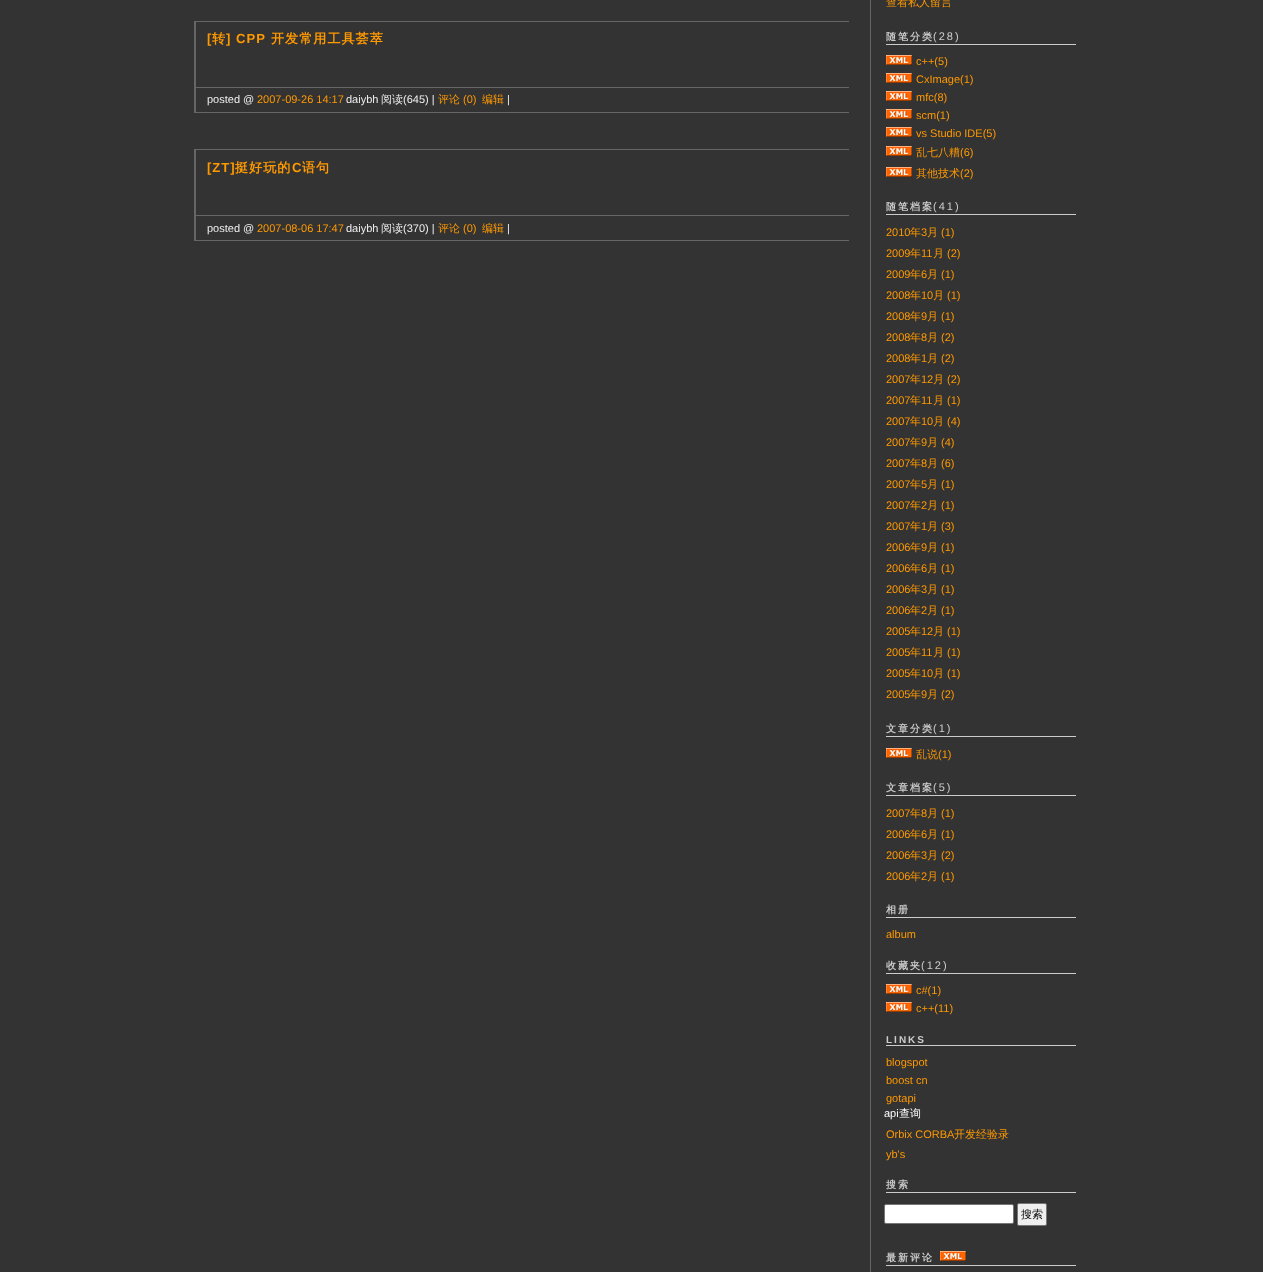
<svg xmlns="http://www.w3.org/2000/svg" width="1263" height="1272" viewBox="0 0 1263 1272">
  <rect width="100%" height="100%" fill="#333"/>
  <path d="M194 21h655v1H194z" fill="#666"/>
  <path d="M194 112h655v1H194z" fill="#666"/>
  <path d="M194 21h2v92H194z" fill="#666"/>
  <path d="M196 87h653v1H196z" fill="#666"/>
  <path d="M194 149h655v1H194z" fill="#666"/>
  <path d="M194 240h655v1H194z" fill="#666"/>
  <path d="M194 149h2v92H194z" fill="#666"/>
  <path d="M196 215h653v1H196z" fill="#666"/>
  <path d="M870 0h1v1272H870z" fill="#666"/>
  <path d="M886 44h190v1H886z" fill="#ccc"/>
  <image x="886" y="55" width="26" height="10" href="img/1.png"/>
  <image x="886" y="73" width="26" height="10" href="img/1.png"/>
  <image x="886" y="91" width="26" height="10" href="img/1.png"/>
  <image x="886" y="109" width="26" height="10" href="img/1.png"/>
  <image x="886" y="127" width="26" height="10" href="img/1.png"/>
  <image x="886" y="146" width="26" height="10" href="img/1.png"/>
  <image x="886" y="167" width="26" height="10" href="img/1.png"/>
  <path d="M886 214h190v1H886z" fill="#ccc"/>
  <path d="M886 736h190v1H886z" fill="#ccc"/>
  <image x="886" y="748" width="26" height="10" href="img/1.png"/>
  <path d="M886 795h190v1H886z" fill="#ccc"/>
  <path d="M886 917h190v1H886z" fill="#ccc"/>
  <path d="M886 973h190v1H886z" fill="#ccc"/>
  <image x="886" y="984" width="26" height="10" href="img/1.png"/>
  <image x="886" y="1002" width="26" height="10" href="img/1.png"/>
  <path d="M886 1045h190v1H886z" fill="#ccc"/>
  <path d="M886 1192h190v1H886z" fill="#ccc"/>
  <rect x="884.5" y="1204.5" width="129" height="19" rx="1.5" fill="#fff" stroke="#767676"/>
  <rect x="1017.5" y="1203.5" width="29" height="22" rx="1.5" fill="#efefef" stroke="#767676"/>
  <path d="M886 1265h190v1H886z" fill="#ccc"/>
  <image x="940" y="1251" width="26" height="10" href="img/1.png"/>
  <text x="207" y="43" font-family="Liberation Sans" font-size="13.1" font-weight="bold" letter-spacing="1" fill="#f90">[</text>
  <text x="212" y="43" font-family="WenQuanYi Zen Hei" font-size="13.1" font-weight="bold" letter-spacing="1" fill="#f90">转</text>
  <text x="226" y="43" font-family="Liberation Sans" font-size="13.1" font-weight="bold" letter-spacing="1" fill="#f90">] CPP</text>
  <text x="271" y="43" font-family="WenQuanYi Zen Hei" font-size="13.1" font-weight="bold" letter-spacing="1" fill="#f90">开发常用工具荟萃</text>
  <text x="207" y="103" font-family="Liberation Sans" font-size="11" fill="#eee">posted @</text>
  <text x="257" y="103" font-family="Liberation Sans" font-size="11" fill="#f90">2007-09-26 14:17</text>
  <text x="346" y="103" font-family="Liberation Sans" font-size="11" fill="#eee">daiybh</text>
  <text x="381" y="103" font-family="WenQuanYi Zen Hei" font-size="11" font-weight="500" fill="#eee">阅读</text>
  <text x="403" y="103" font-family="Liberation Sans" font-size="11" fill="#eee">(645) |</text>
  <text x="438" y="103" font-family="WenQuanYi Zen Hei" font-size="11" font-weight="500" fill="#f90">评论</text>
  <text x="463" y="103" font-family="Liberation Sans" font-size="11" fill="#f90">(0)</text>
  <text x="482" y="103" font-family="WenQuanYi Zen Hei" font-size="11" font-weight="500" fill="#f90">编辑</text>
  <text x="507" y="103" font-family="Liberation Sans" font-size="11" fill="#eee">|</text>
  <text x="207" y="172" font-family="Liberation Sans" font-size="13.1" font-weight="bold" letter-spacing="1" fill="#f90">[ZT]</text>
  <text x="235" y="172" font-family="WenQuanYi Zen Hei" font-size="13.1" font-weight="bold" letter-spacing="1" fill="#f90">挺好玩的</text>
  <text x="292" y="172" font-family="Liberation Sans" font-size="13.1" font-weight="bold" letter-spacing="1" fill="#f90">C</text>
  <text x="302" y="172" font-family="WenQuanYi Zen Hei" font-size="13.1" font-weight="bold" letter-spacing="1" fill="#f90">语句</text>
  <text x="207" y="232" font-family="Liberation Sans" font-size="11" fill="#eee">posted @</text>
  <text x="257" y="232" font-family="Liberation Sans" font-size="11" fill="#f90">2007-08-06 17:47</text>
  <text x="346" y="232" font-family="Liberation Sans" font-size="11" fill="#eee">daiybh</text>
  <text x="381" y="232" font-family="WenQuanYi Zen Hei" font-size="11" font-weight="500" fill="#eee">阅读</text>
  <text x="403" y="232" font-family="Liberation Sans" font-size="11" fill="#eee">(370) |</text>
  <text x="438" y="232" font-family="WenQuanYi Zen Hei" font-size="11" font-weight="500" fill="#f90">评论</text>
  <text x="463" y="232" font-family="Liberation Sans" font-size="11" fill="#f90">(0)</text>
  <text x="482" y="232" font-family="WenQuanYi Zen Hei" font-size="11" font-weight="500" fill="#f90">编辑</text>
  <text x="507" y="232" font-family="Liberation Sans" font-size="11" fill="#eee">|</text>
  <text x="886" y="6" font-family="WenQuanYi Zen Hei" font-size="11" font-weight="500" fill="#f90">查看私人留言</text>
  <text x="886" y="40" font-family="WenQuanYi Zen Hei" font-size="10" font-weight="bold" letter-spacing="2" fill="#ccc">随笔分类</text>
  <text x="933" y="40" font-family="Liberation Sans" font-size="11" letter-spacing="2" fill="#ccc">(28)</text>
  <g font-family="Liberation Sans" font-size="11" fill="#f90">
    <text x="916" y="65">c++(5)</text>
    <text x="916" y="83">CxImage(1)</text>
    <text x="916" y="101">mfc(8)</text>
    <text x="916" y="119">scm(1)</text>
    <text x="916" y="137">vs Studio IDE(5)</text>
  </g>
  <text x="916" y="156" font-family="WenQuanYi Zen Hei" font-size="11" font-weight="500" fill="#f90">乱七八糟</text>
  <text x="960" y="156" font-family="Liberation Sans" font-size="11" fill="#f90">(6)</text>
  <text x="916" y="177" font-family="WenQuanYi Zen Hei" font-size="11" font-weight="500" fill="#f90">其他技术</text>
  <text x="960" y="177" font-family="Liberation Sans" font-size="11" fill="#f90">(2)</text>
  <text x="886" y="210" font-family="WenQuanYi Zen Hei" font-size="10" font-weight="bold" letter-spacing="2" fill="#ccc">随笔档案</text>
  <text x="933" y="210" font-family="Liberation Sans" font-size="11" letter-spacing="2" fill="#ccc">(41)</text>
  <text x="886" y="236" font-family="Liberation Sans" font-size="11" fill="#f90">2010</text>
  <text x="910" y="236" font-family="WenQuanYi Zen Hei" font-size="11" font-weight="500" fill="#f90">年</text>
  <text x="921" y="236" font-family="Liberation Sans" font-size="11" fill="#f90">3</text>
  <text x="927" y="236" font-family="WenQuanYi Zen Hei" font-size="11" font-weight="500" fill="#f90">月</text>
  <g font-family="Liberation Sans" font-size="11" fill="#f90">
    <text x="941" y="236">(1)</text>
    <text x="886" y="257">2009</text>
  </g>
  <text x="910" y="257" font-family="WenQuanYi Zen Hei" font-size="11" font-weight="500" fill="#f90">年</text>
  <text x="921" y="257" font-family="Liberation Sans" font-size="11" fill="#f90">11</text>
  <text x="933" y="257" font-family="WenQuanYi Zen Hei" font-size="11" font-weight="500" fill="#f90">月</text>
  <g font-family="Liberation Sans" font-size="11" fill="#f90">
    <text x="947" y="257">(2)</text>
    <text x="886" y="278">2009</text>
  </g>
  <text x="910" y="278" font-family="WenQuanYi Zen Hei" font-size="11" font-weight="500" fill="#f90">年</text>
  <text x="921" y="278" font-family="Liberation Sans" font-size="11" fill="#f90">6</text>
  <text x="927" y="278" font-family="WenQuanYi Zen Hei" font-size="11" font-weight="500" fill="#f90">月</text>
  <g font-family="Liberation Sans" font-size="11" fill="#f90">
    <text x="941" y="278">(1)</text>
    <text x="886" y="299">2008</text>
  </g>
  <text x="910" y="299" font-family="WenQuanYi Zen Hei" font-size="11" font-weight="500" fill="#f90">年</text>
  <text x="921" y="299" font-family="Liberation Sans" font-size="11" fill="#f90">10</text>
  <text x="933" y="299" font-family="WenQuanYi Zen Hei" font-size="11" font-weight="500" fill="#f90">月</text>
  <g font-family="Liberation Sans" font-size="11" fill="#f90">
    <text x="947" y="299">(1)</text>
    <text x="886" y="320">2008</text>
  </g>
  <text x="910" y="320" font-family="WenQuanYi Zen Hei" font-size="11" font-weight="500" fill="#f90">年</text>
  <text x="921" y="320" font-family="Liberation Sans" font-size="11" fill="#f90">9</text>
  <text x="927" y="320" font-family="WenQuanYi Zen Hei" font-size="11" font-weight="500" fill="#f90">月</text>
  <g font-family="Liberation Sans" font-size="11" fill="#f90">
    <text x="941" y="320">(1)</text>
    <text x="886" y="341">2008</text>
  </g>
  <text x="910" y="341" font-family="WenQuanYi Zen Hei" font-size="11" font-weight="500" fill="#f90">年</text>
  <text x="921" y="341" font-family="Liberation Sans" font-size="11" fill="#f90">8</text>
  <text x="927" y="341" font-family="WenQuanYi Zen Hei" font-size="11" font-weight="500" fill="#f90">月</text>
  <g font-family="Liberation Sans" font-size="11" fill="#f90">
    <text x="941" y="341">(2)</text>
    <text x="886" y="362">2008</text>
  </g>
  <text x="910" y="362" font-family="WenQuanYi Zen Hei" font-size="11" font-weight="500" fill="#f90">年</text>
  <text x="921" y="362" font-family="Liberation Sans" font-size="11" fill="#f90">1</text>
  <text x="927" y="362" font-family="WenQuanYi Zen Hei" font-size="11" font-weight="500" fill="#f90">月</text>
  <g font-family="Liberation Sans" font-size="11" fill="#f90">
    <text x="941" y="362">(2)</text>
    <text x="886" y="383">2007</text>
  </g>
  <text x="910" y="383" font-family="WenQuanYi Zen Hei" font-size="11" font-weight="500" fill="#f90">年</text>
  <text x="921" y="383" font-family="Liberation Sans" font-size="11" fill="#f90">12</text>
  <text x="933" y="383" font-family="WenQuanYi Zen Hei" font-size="11" font-weight="500" fill="#f90">月</text>
  <g font-family="Liberation Sans" font-size="11" fill="#f90">
    <text x="947" y="383">(2)</text>
    <text x="886" y="404">2007</text>
  </g>
  <text x="910" y="404" font-family="WenQuanYi Zen Hei" font-size="11" font-weight="500" fill="#f90">年</text>
  <text x="921" y="404" font-family="Liberation Sans" font-size="11" fill="#f90">11</text>
  <text x="933" y="404" font-family="WenQuanYi Zen Hei" font-size="11" font-weight="500" fill="#f90">月</text>
  <g font-family="Liberation Sans" font-size="11" fill="#f90">
    <text x="947" y="404">(1)</text>
    <text x="886" y="425">2007</text>
  </g>
  <text x="910" y="425" font-family="WenQuanYi Zen Hei" font-size="11" font-weight="500" fill="#f90">年</text>
  <text x="921" y="425" font-family="Liberation Sans" font-size="11" fill="#f90">10</text>
  <text x="933" y="425" font-family="WenQuanYi Zen Hei" font-size="11" font-weight="500" fill="#f90">月</text>
  <g font-family="Liberation Sans" font-size="11" fill="#f90">
    <text x="947" y="425">(4)</text>
    <text x="886" y="446">2007</text>
  </g>
  <text x="910" y="446" font-family="WenQuanYi Zen Hei" font-size="11" font-weight="500" fill="#f90">年</text>
  <text x="921" y="446" font-family="Liberation Sans" font-size="11" fill="#f90">9</text>
  <text x="927" y="446" font-family="WenQuanYi Zen Hei" font-size="11" font-weight="500" fill="#f90">月</text>
  <g font-family="Liberation Sans" font-size="11" fill="#f90">
    <text x="941" y="446">(4)</text>
    <text x="886" y="467">2007</text>
  </g>
  <text x="910" y="467" font-family="WenQuanYi Zen Hei" font-size="11" font-weight="500" fill="#f90">年</text>
  <text x="921" y="467" font-family="Liberation Sans" font-size="11" fill="#f90">8</text>
  <text x="927" y="467" font-family="WenQuanYi Zen Hei" font-size="11" font-weight="500" fill="#f90">月</text>
  <g font-family="Liberation Sans" font-size="11" fill="#f90">
    <text x="941" y="467">(6)</text>
    <text x="886" y="488">2007</text>
  </g>
  <text x="910" y="488" font-family="WenQuanYi Zen Hei" font-size="11" font-weight="500" fill="#f90">年</text>
  <text x="921" y="488" font-family="Liberation Sans" font-size="11" fill="#f90">5</text>
  <text x="927" y="488" font-family="WenQuanYi Zen Hei" font-size="11" font-weight="500" fill="#f90">月</text>
  <g font-family="Liberation Sans" font-size="11" fill="#f90">
    <text x="941" y="488">(1)</text>
    <text x="886" y="509">2007</text>
  </g>
  <text x="910" y="509" font-family="WenQuanYi Zen Hei" font-size="11" font-weight="500" fill="#f90">年</text>
  <text x="921" y="509" font-family="Liberation Sans" font-size="11" fill="#f90">2</text>
  <text x="927" y="509" font-family="WenQuanYi Zen Hei" font-size="11" font-weight="500" fill="#f90">月</text>
  <g font-family="Liberation Sans" font-size="11" fill="#f90">
    <text x="941" y="509">(1)</text>
    <text x="886" y="530">2007</text>
  </g>
  <text x="910" y="530" font-family="WenQuanYi Zen Hei" font-size="11" font-weight="500" fill="#f90">年</text>
  <text x="921" y="530" font-family="Liberation Sans" font-size="11" fill="#f90">1</text>
  <text x="927" y="530" font-family="WenQuanYi Zen Hei" font-size="11" font-weight="500" fill="#f90">月</text>
  <g font-family="Liberation Sans" font-size="11" fill="#f90">
    <text x="941" y="530">(3)</text>
    <text x="886" y="551">2006</text>
  </g>
  <text x="910" y="551" font-family="WenQuanYi Zen Hei" font-size="11" font-weight="500" fill="#f90">年</text>
  <text x="921" y="551" font-family="Liberation Sans" font-size="11" fill="#f90">9</text>
  <text x="927" y="551" font-family="WenQuanYi Zen Hei" font-size="11" font-weight="500" fill="#f90">月</text>
  <g font-family="Liberation Sans" font-size="11" fill="#f90">
    <text x="941" y="551">(1)</text>
    <text x="886" y="572">2006</text>
  </g>
  <text x="910" y="572" font-family="WenQuanYi Zen Hei" font-size="11" font-weight="500" fill="#f90">年</text>
  <text x="921" y="572" font-family="Liberation Sans" font-size="11" fill="#f90">6</text>
  <text x="927" y="572" font-family="WenQuanYi Zen Hei" font-size="11" font-weight="500" fill="#f90">月</text>
  <g font-family="Liberation Sans" font-size="11" fill="#f90">
    <text x="941" y="572">(1)</text>
    <text x="886" y="593">2006</text>
  </g>
  <text x="910" y="593" font-family="WenQuanYi Zen Hei" font-size="11" font-weight="500" fill="#f90">年</text>
  <text x="921" y="593" font-family="Liberation Sans" font-size="11" fill="#f90">3</text>
  <text x="927" y="593" font-family="WenQuanYi Zen Hei" font-size="11" font-weight="500" fill="#f90">月</text>
  <g font-family="Liberation Sans" font-size="11" fill="#f90">
    <text x="941" y="593">(1)</text>
    <text x="886" y="614">2006</text>
  </g>
  <text x="910" y="614" font-family="WenQuanYi Zen Hei" font-size="11" font-weight="500" fill="#f90">年</text>
  <text x="921" y="614" font-family="Liberation Sans" font-size="11" fill="#f90">2</text>
  <text x="927" y="614" font-family="WenQuanYi Zen Hei" font-size="11" font-weight="500" fill="#f90">月</text>
  <g font-family="Liberation Sans" font-size="11" fill="#f90">
    <text x="941" y="614">(1)</text>
    <text x="886" y="635">2005</text>
  </g>
  <text x="910" y="635" font-family="WenQuanYi Zen Hei" font-size="11" font-weight="500" fill="#f90">年</text>
  <text x="921" y="635" font-family="Liberation Sans" font-size="11" fill="#f90">12</text>
  <text x="933" y="635" font-family="WenQuanYi Zen Hei" font-size="11" font-weight="500" fill="#f90">月</text>
  <g font-family="Liberation Sans" font-size="11" fill="#f90">
    <text x="947" y="635">(1)</text>
    <text x="886" y="656">2005</text>
  </g>
  <text x="910" y="656" font-family="WenQuanYi Zen Hei" font-size="11" font-weight="500" fill="#f90">年</text>
  <text x="921" y="656" font-family="Liberation Sans" font-size="11" fill="#f90">11</text>
  <text x="933" y="656" font-family="WenQuanYi Zen Hei" font-size="11" font-weight="500" fill="#f90">月</text>
  <g font-family="Liberation Sans" font-size="11" fill="#f90">
    <text x="947" y="656">(1)</text>
    <text x="886" y="677">2005</text>
  </g>
  <text x="910" y="677" font-family="WenQuanYi Zen Hei" font-size="11" font-weight="500" fill="#f90">年</text>
  <text x="921" y="677" font-family="Liberation Sans" font-size="11" fill="#f90">10</text>
  <text x="933" y="677" font-family="WenQuanYi Zen Hei" font-size="11" font-weight="500" fill="#f90">月</text>
  <g font-family="Liberation Sans" font-size="11" fill="#f90">
    <text x="947" y="677">(1)</text>
    <text x="886" y="698">2005</text>
  </g>
  <text x="910" y="698" font-family="WenQuanYi Zen Hei" font-size="11" font-weight="500" fill="#f90">年</text>
  <text x="921" y="698" font-family="Liberation Sans" font-size="11" fill="#f90">9</text>
  <text x="927" y="698" font-family="WenQuanYi Zen Hei" font-size="11" font-weight="500" fill="#f90">月</text>
  <text x="941" y="698" font-family="Liberation Sans" font-size="11" fill="#f90">(2)</text>
  <text x="886" y="732" font-family="WenQuanYi Zen Hei" font-size="10" font-weight="bold" letter-spacing="2" fill="#ccc">文章分类</text>
  <text x="933" y="732" font-family="Liberation Sans" font-size="11" letter-spacing="2" fill="#ccc">(1)</text>
  <text x="916" y="758" font-family="WenQuanYi Zen Hei" font-size="11" font-weight="500" fill="#f90">乱说</text>
  <text x="938" y="758" font-family="Liberation Sans" font-size="11" fill="#f90">(1)</text>
  <text x="886" y="791" font-family="WenQuanYi Zen Hei" font-size="10" font-weight="bold" letter-spacing="2" fill="#ccc">文章档案</text>
  <text x="933" y="791" font-family="Liberation Sans" font-size="11" letter-spacing="2" fill="#ccc">(5)</text>
  <text x="886" y="817" font-family="Liberation Sans" font-size="11" fill="#f90">2007</text>
  <text x="910" y="817" font-family="WenQuanYi Zen Hei" font-size="11" font-weight="500" fill="#f90">年</text>
  <text x="921" y="817" font-family="Liberation Sans" font-size="11" fill="#f90">8</text>
  <text x="927" y="817" font-family="WenQuanYi Zen Hei" font-size="11" font-weight="500" fill="#f90">月</text>
  <g font-family="Liberation Sans" font-size="11" fill="#f90">
    <text x="941" y="817">(1)</text>
    <text x="886" y="838">2006</text>
  </g>
  <text x="910" y="838" font-family="WenQuanYi Zen Hei" font-size="11" font-weight="500" fill="#f90">年</text>
  <text x="921" y="838" font-family="Liberation Sans" font-size="11" fill="#f90">6</text>
  <text x="927" y="838" font-family="WenQuanYi Zen Hei" font-size="11" font-weight="500" fill="#f90">月</text>
  <g font-family="Liberation Sans" font-size="11" fill="#f90">
    <text x="941" y="838">(1)</text>
    <text x="886" y="859">2006</text>
  </g>
  <text x="910" y="859" font-family="WenQuanYi Zen Hei" font-size="11" font-weight="500" fill="#f90">年</text>
  <text x="921" y="859" font-family="Liberation Sans" font-size="11" fill="#f90">3</text>
  <text x="927" y="859" font-family="WenQuanYi Zen Hei" font-size="11" font-weight="500" fill="#f90">月</text>
  <g font-family="Liberation Sans" font-size="11" fill="#f90">
    <text x="941" y="859">(2)</text>
    <text x="886" y="880">2006</text>
  </g>
  <text x="910" y="880" font-family="WenQuanYi Zen Hei" font-size="11" font-weight="500" fill="#f90">年</text>
  <text x="921" y="880" font-family="Liberation Sans" font-size="11" fill="#f90">2</text>
  <text x="927" y="880" font-family="WenQuanYi Zen Hei" font-size="11" font-weight="500" fill="#f90">月</text>
  <text x="941" y="880" font-family="Liberation Sans" font-size="11" fill="#f90">(1)</text>
  <text x="886" y="913" font-family="WenQuanYi Zen Hei" font-size="10" font-weight="bold" letter-spacing="2" fill="#ccc">相册</text>
  <text x="886" y="938" font-family="Liberation Sans" font-size="11" fill="#f90">album</text>
  <text x="886" y="969" font-family="WenQuanYi Zen Hei" font-size="10" font-weight="bold" letter-spacing="2" fill="#ccc">收藏夹</text>
  <text x="921" y="969" font-family="Liberation Sans" font-size="11" letter-spacing="2" fill="#ccc">(12)</text>
  <g font-family="Liberation Sans" font-size="11" fill="#f90">
    <text x="916" y="994">c#(1)</text>
    <text x="916" y="1012">c++(11)</text>
  </g>
  <text x="886" y="1043" font-family="Liberation Sans" font-size="10" font-weight="bold" letter-spacing="2" fill="#ccc">LINKS</text>
  <g font-family="Liberation Sans" font-size="11" fill="#f90">
    <text x="886" y="1066">blogspot</text>
    <text x="886" y="1084">boost cn</text>
    <text x="886" y="1102">gotapi</text>
  </g>
  <text x="884" y="1117" font-family="Liberation Sans" font-size="11" fill="#fff">api</text>
  <text x="899" y="1117" font-family="WenQuanYi Zen Hei" font-size="11" font-weight="500" fill="#fff">查询</text>
  <text x="886" y="1138" font-family="Liberation Sans" font-size="11" fill="#f90">Orbix CORBA</text>
  <text x="954" y="1138" font-family="WenQuanYi Zen Hei" font-size="11" font-weight="500" fill="#f90">开发经验录</text>
  <text x="886" y="1158" font-family="Liberation Sans" font-size="11" fill="#f90">yb's</text>
  <text x="886" y="1188" font-family="WenQuanYi Zen Hei" font-size="10" font-weight="bold" letter-spacing="2" fill="#ccc">搜索</text>
  <text x="1021" y="1218" font-family="WenQuanYi Zen Hei" font-size="11" font-weight="500" fill="#000">搜索</text>
  <text x="886" y="1261" font-family="WenQuanYi Zen Hei" font-size="10" font-weight="bold" letter-spacing="2" fill="#ccc">最新评论</text>
</svg>
